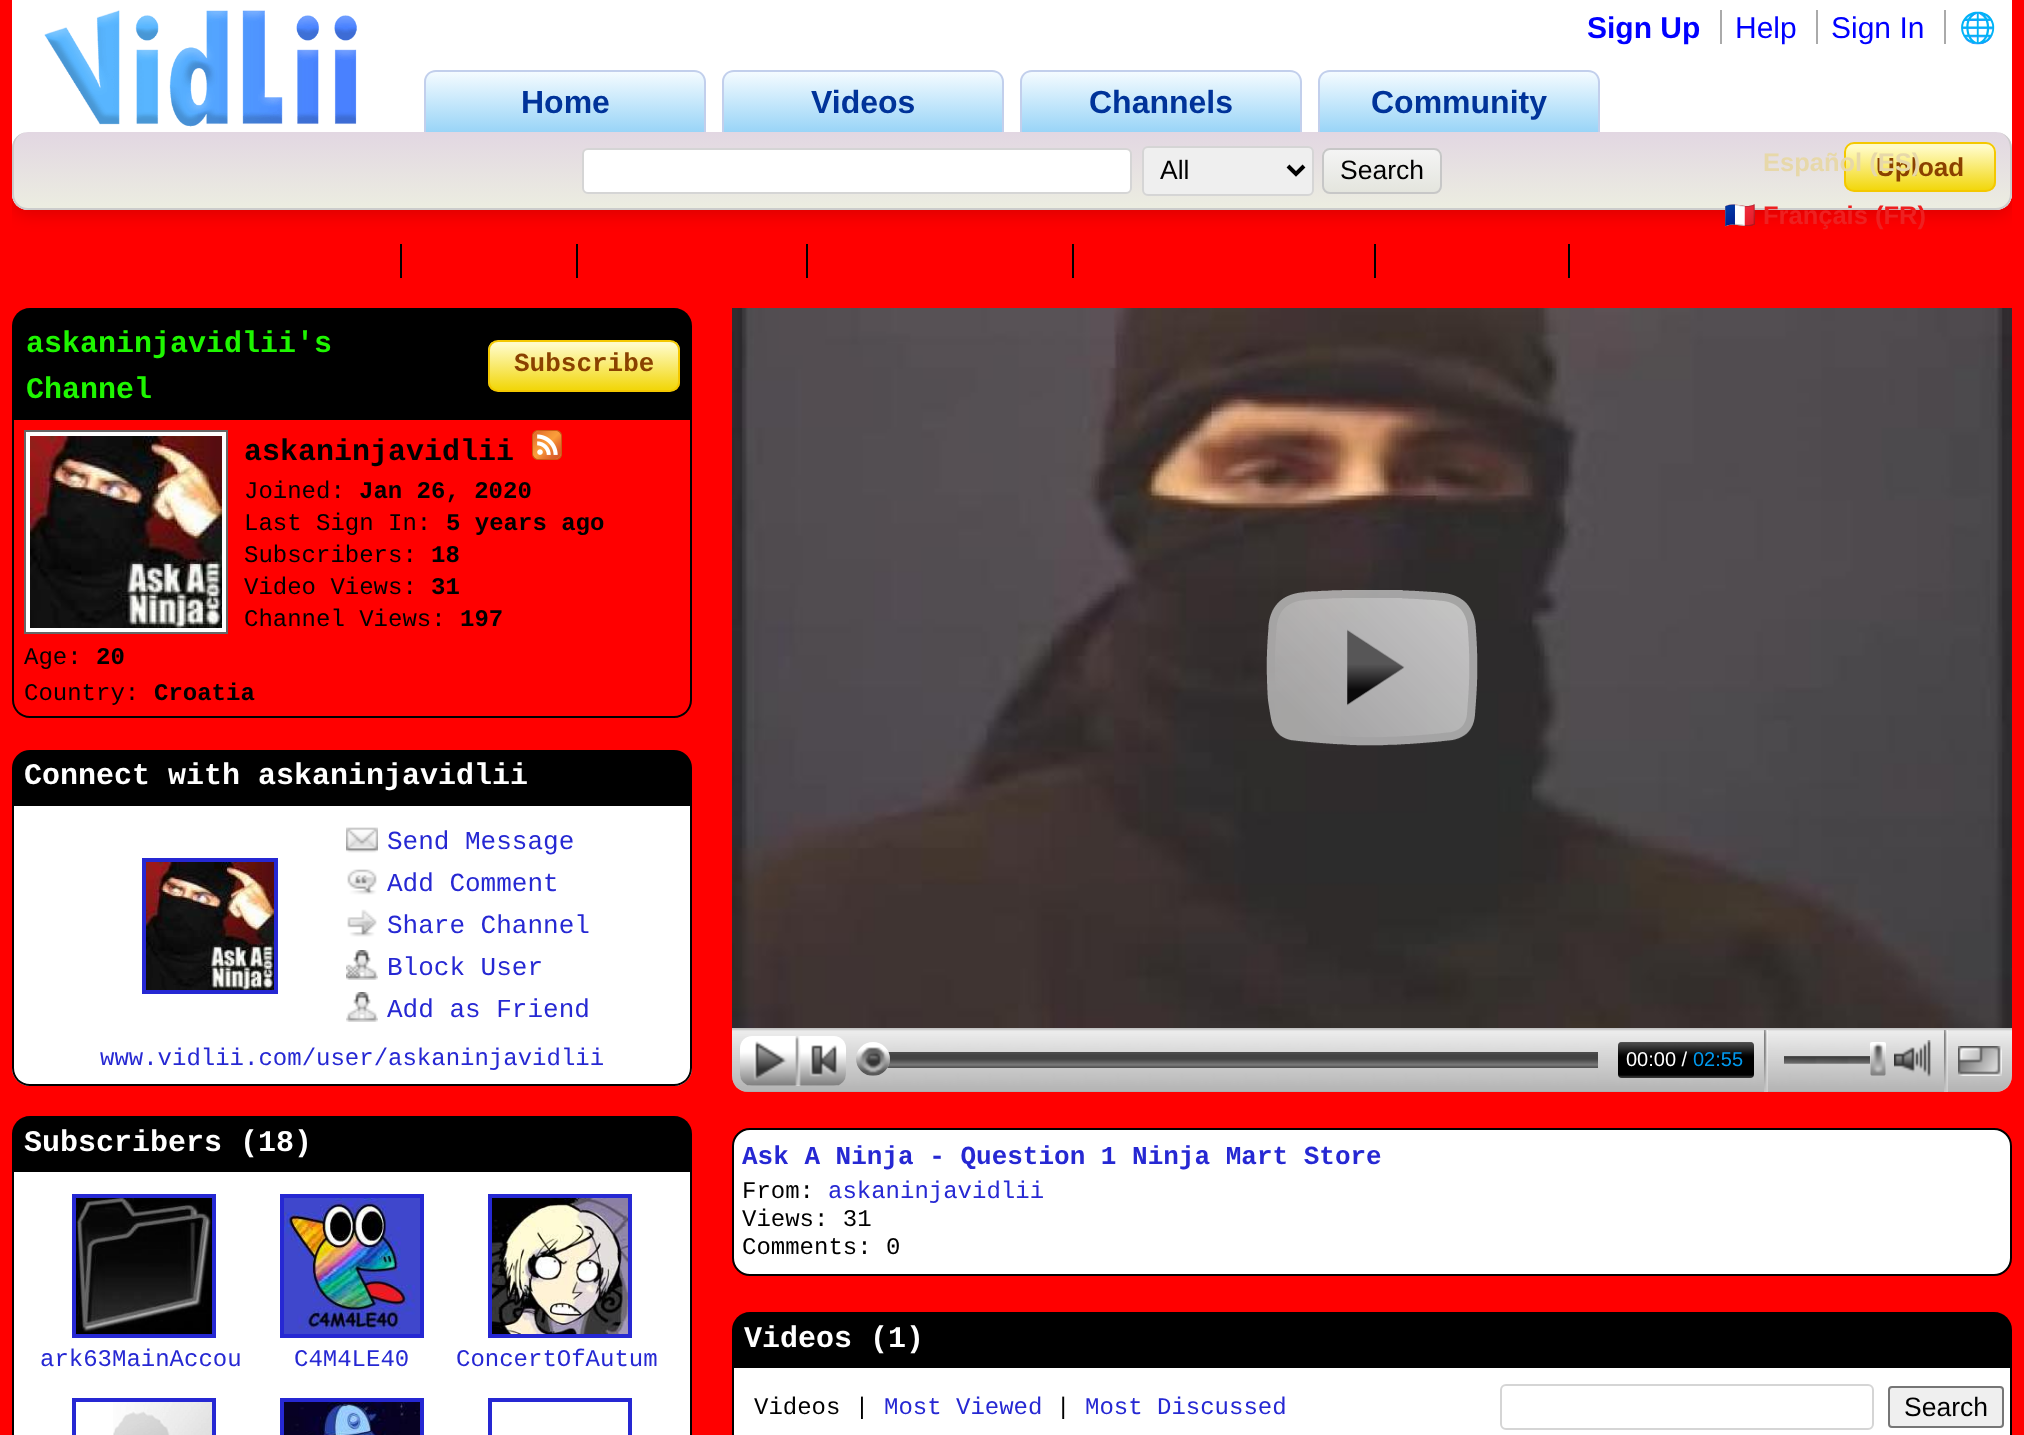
<svg xmlns="http://www.w3.org/2000/svg" width="2024" height="1435" viewBox="0 0 2024 1435">
  <defs>
    <clipPath id="clip1"><path d="M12 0h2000v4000H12z"/></clipPath>
    <clipPath id="clip2"><path d="M436 70H694C700.5 70 706 75.5 706 82V134H424V82C424 75.5 429.5 70 436 70Z"/></clipPath>
    <linearGradient id="g1" gradientUnits="userSpaceOnUse" x1="565" y1="72" x2="565" y2="134"><stop offset="0" stop-color="#f4fbff"/><stop offset="1" stop-color="#96d3f7"/></linearGradient>
    <clipPath id="clip3"><path d="M734 70H992C998.5 70 1004 75.5 1004 82V134H722V82C722 75.5 727.5 70 734 70Z"/></clipPath>
    <linearGradient id="g2" gradientUnits="userSpaceOnUse" x1="863" y1="72" x2="863" y2="134"><stop offset="0" stop-color="#f4fbff"/><stop offset="1" stop-color="#96d3f7"/></linearGradient>
    <clipPath id="clip4"><path d="M1032 70H1290C1296.5 70 1302 75.5 1302 82V134H1020V82C1020 75.5 1025.5 70 1032 70Z"/></clipPath>
    <linearGradient id="g3" gradientUnits="userSpaceOnUse" x1="1161" y1="72" x2="1161" y2="134"><stop offset="0" stop-color="#f4fbff"/><stop offset="1" stop-color="#96d3f7"/></linearGradient>
    <clipPath id="clip5"><path d="M1330 70H1588C1594.5 70 1600 75.5 1600 82V134H1318V82C1318 75.5 1323.5 70 1330 70Z"/></clipPath>
    <linearGradient id="g4" gradientUnits="userSpaceOnUse" x1="1459" y1="72" x2="1459" y2="134"><stop offset="0" stop-color="#f4fbff"/><stop offset="1" stop-color="#96d3f7"/></linearGradient>
    <clipPath id="clip6"><rect x="12" y="132" width="2000" height="78" rx="16"/></clipPath>
    <linearGradient id="g5" gradientUnits="userSpaceOnUse" x1="1012" y1="132" x2="1012" y2="208"><stop offset="0.01" stop-color="#e2d7e2"/><stop offset="1" stop-color="#ecede1"/></linearGradient>
    <clipPath id="clip7"><rect x="1322" y="148" width="120" height="46" rx="8"/></clipPath>
    <linearGradient id="g6" gradientUnits="userSpaceOnUse" x1="1382" y1="150" x2="1382" y2="192"><stop offset="0" stop-color="#f4f4f4"/><stop offset="1" stop-color="#e4e5de"/></linearGradient>
    <clipPath id="clip8"><rect x="1844" y="142" width="152" height="50" rx="10"/></clipPath>
    <linearGradient id="g7" gradientUnits="userSpaceOnUse" x1="1920" y1="144" x2="1920" y2="190"><stop offset="0.07" stop-color="#fffbc7"/><stop offset="1" stop-color="#f2d70c"/></linearGradient>
    <clipPath id="clip9"><rect x="488" y="340" width="192" height="52" rx="10"/></clipPath>
    <linearGradient id="g8" gradientUnits="userSpaceOnUse" x1="584" y1="341" x2="584" y2="389"><stop offset="0.07" stop-color="#fffbc7"/><stop offset="1" stop-color="#f2d70c"/></linearGradient>
  </defs>
  <rect width="100%" height="100%" fill="#f00"/>
  <g clip-path="url(#clip1)">
    <rect x="12" y="4" width="2000" height="210" rx="16" fill="#00000026" filter="blur(9px)"/>
  </g>
  <path d="M12 0H2012V194C2012 203 2005 210 1996 210H28C19 210 12 203 12 194Z" fill="#fff"/>
  <image x="44" y="10" width="313" height="117" href="img/1.png"/>
  <g clip-path="url(#clip2)">
    <path d="M424 72h282v60H424z" fill="url(#g1)"/>
  </g>
  <path d="M436 70H694C701 70 706 75 706 82V134H424V82C424 75 429 70 436 70ZM436 72H694C700 72 704 76 704 82V134H426V82C426 76 430 72 436 72Z" fill="#c2cfec" fill-rule="evenodd"/>
  <g clip-path="url(#clip3)">
    <path d="M722 72h282v60H722z" fill="url(#g2)"/>
  </g>
  <path d="M734 70H992C999 70 1004 75 1004 82V134H722V82C722 75 727 70 734 70ZM734 72H992C998 72 1002 76 1002 82V134H724V82C724 76 728 72 734 72Z" fill="#c2cfec" fill-rule="evenodd"/>
  <g clip-path="url(#clip4)">
    <path d="M1020 72h282v60H1020z" fill="url(#g3)"/>
  </g>
  <path d="M1032 70H1290C1297 70 1302 75 1302 82V134H1020V82C1020 75 1025 70 1032 70ZM1032 72H1290C1296 72 1300 76 1300 82V134H1022V82C1022 76 1026 72 1032 72Z" fill="#c2cfec" fill-rule="evenodd"/>
  <g clip-path="url(#clip5)">
    <path d="M1318 72h282v60H1318z" fill="url(#g4)"/>
  </g>
  <path d="M1330 70H1588C1595 70 1600 75 1600 82V134H1318V82C1318 75 1323 70 1330 70ZM1330 72H1588C1594 72 1598 76 1598 82V134H1320V82C1320 76 1324 72 1330 72Z" fill="#c2cfec" fill-rule="evenodd"/>
  <path d="M1944 10h2v34H1944z" fill="#aaa"/>
  <path d="M1720 10h2v34H1720z" fill="#aaa"/>
  <path d="M1816 10h2v34H1816z" fill="#aaa"/>
  <g clip-path="url(#clip6)">
    <path d="M28 132H1996C2005 132 2012 139 2012 148V208H12V148C12 139 19 132 28 132Z" fill="url(#g5)"/>
  </g>
  <path d="M28 132H1996C2005 132 2012 139 2012 148V194C2012 203 2005 210 1996 210H28C19 210 12 203 12 194V148C12 139 19 132 28 132ZM28 132H1996C2004 132 2010 139 2010 148V194C2010 202 2004 208 1996 208H28C20 208 14 202 14 194V148C14 139 20 132 28 132Z" fill="#ccc" fill-rule="evenodd"/>
  <rect x="583" y="149" width="548" height="44" rx="5" fill="#fff" stroke="#d5d5d5" stroke-width="2"/>
  <rect x="1143" y="147" width="170" height="48" rx="5" fill="#efefef" stroke="#d5d5d5" stroke-width="2"/>
  <path d="M1288 166L1296 174L1304 166" fill="none" stroke="#000" stroke-width="4"/>
  <g clip-path="url(#clip7)">
    <path d="M1322 150h120v42H1322z" fill="url(#g6)"/>
  </g>
  <rect x="1323" y="149" width="118" height="44" rx="7" fill="none" stroke="#c7c7c7" stroke-width="2"/>
  <g clip-path="url(#clip8)">
    <path d="M1844 144h152v46H1844z" fill="url(#g7)"/>
  </g>
  <rect x="1845" y="143" width="150" height="48" rx="9" fill="none" stroke="#f4c800" stroke-width="2"/>
  <path d="M400 244h2v34H400z" fill="#000"/>
  <path d="M576 244h2v34H576z" fill="#000"/>
  <path d="M806 244h2v34H806z" fill="#000"/>
  <path d="M1072 244h2v34H1072z" fill="#000"/>
  <path d="M1374 244h2v34H1374z" fill="#000"/>
  <path d="M1568 244h2v34H1568z" fill="#000"/>
  <path d="M30 308H674C684 308 692 316 692 326V420H12V326C12 316 20 308 30 308Z" fill="#000"/>
  <g clip-path="url(#clip9)">
    <path d="M488 342h192v48H488z" fill="url(#g8)"/>
  </g>
  <rect x="489" y="341" width="190" height="50" rx="9" fill="none" stroke="#f4c800" stroke-width="2"/>
  <path d="M12 420H692V700C692 710 684 718 674 718H30C20 718 12 710 12 700ZM14 420H690V700C690 709 683 716 674 716H30C21 716 14 709 14 700Z" fill="#000" fill-rule="evenodd"/>
  <path d="M25 431h202v202H25z" fill="#fff" stroke="#666" stroke-width="2"/>
  <image x="30" y="436" width="192" height="192" href="img/2.png"/>
  <image x="532" y="430" width="30" height="30" href="img/3.png"/>
  <path d="M30 750H674C684 750 692 758 692 768V806H12V768C12 758 20 750 30 750Z" fill="#000"/>
  <path d="M12 806H692V1068C692 1078 684 1086 674 1086H30C20 1086 12 1078 12 1068Z" fill="#fff"/>
  <path d="M12 806H692V1068C692 1078 684 1086 674 1086H30C20 1086 12 1078 12 1068ZM14 806H690V1068C690 1077 683 1084 674 1084H30C21 1084 14 1077 14 1068Z" fill="#000" fill-rule="evenodd"/>
  <path d="M144 860h132v132H144z" fill="none" stroke="#2628d3" stroke-width="4"/>
  <image x="146" y="862" width="128" height="128" href="img/4.png"/>
  <image x="346" y="827" width="32" height="26" href="img/5.png"/>
  <image x="347" y="869" width="30" height="26" href="img/6.png"/>
  <image x="347" y="909" width="30" height="28" href="img/7.png"/>
  <image x="346" y="950" width="32" height="30" href="img/8.png"/>
  <image x="346" y="992" width="32" height="30" href="img/9.png"/>
  <path d="M30 1116H674C684 1116 692 1124 692 1134V1172H12V1134C12 1124 20 1116 30 1116Z" fill="#000"/>
  <path d="M14 1172h676v263H14z" fill="#fff"/>
  <path d="M12 1172H692V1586C692 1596 684 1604 674 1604H30C20 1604 12 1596 12 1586ZM14 1172H690V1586C690 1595 683 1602 674 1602H30C21 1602 14 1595 14 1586Z" fill="#000" fill-rule="evenodd"/>
  <path d="M74 1196h140v140H74z" fill="none" stroke="#2628d3" stroke-width="4"/>
  <image x="76" y="1198" width="136" height="136" href="img/10.png"/>
  <path d="M282 1196h140v140H282z" fill="none" stroke="#2628d3" stroke-width="4"/>
  <image x="284" y="1198" width="136" height="136" href="img/11.png"/>
  <path d="M490 1196h140v140H490z" fill="none" stroke="#2628d3" stroke-width="4"/>
  <image x="492" y="1198" width="136" height="136" href="img/12.png"/>
  <path d="M74 1400h140v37H74z" fill="none" stroke="#2628d3" stroke-width="4"/>
  <image x="113" y="1402" width="99" height="33" href="img/13.png"/>
  <path d="M282 1400h140v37H282z" fill="none" stroke="#2628d3" stroke-width="4"/>
  <image x="284" y="1402" width="136" height="33" href="img/14.png"/>
  <path d="M490 1400h140v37H490z" fill="none" stroke="#2628d3" stroke-width="4"/>
  <image x="732" y="308" width="1280" height="720" href="img/15.png"/>
  <image x="1266" y="590" width="212" height="156" href="img/16.png"/>
  <path d="M732 1028H2012V1076C2012 1085 2005 1092 1996 1092H748C739 1092 732 1085 732 1076Z" fill="#fff"/>
  <image x="732" y="1028" width="1280" height="64" href="img/17.png"/>
  <path d="M752 1036H800V1086H752C745.5 1086 740 1080.5 740 1074V1048C740 1041.5 745.5 1036 752 1036Z" fill="#fff"/>
  <image x="740" y="1036" width="60" height="50" href="img/18.png"/>
  <path d="M800 1036H834C840.5 1036 846 1041.5 846 1048V1074C846 1080.5 840.5 1086 834 1086H800Z" fill="#fff"/>
  <image x="800" y="1045" width="46" height="41" href="img/19.png"/>
  <path d="M887 1052h711v16H887z" fill="#666"/>
  <image x="887" y="1052" width="711" height="16" href="img/20.png"/>
  <circle cx="873" cy="1059" r="17" fill="#fff"/>
  <image x="856" y="1047" width="34" height="29" href="img/21.png"/>
  <rect x="1618" y="1042" width="136" height="36" rx="4" fill="#000"/>
  <image x="1618" y="1042" width="136" height="36" href="img/22.png"/>
  <path d="M1764 1030h4v62H1764z" fill="#fff"/>
  <image x="1764" y="1030" width="4" height="62" href="img/23.png"/>
  <image x="1784" y="1056" width="86" height="8" href="img/24.png"/>
  <rect x="1870" y="1042" width="16" height="34" rx="2" fill="#fff"/>
  <image x="1870" y="1043" width="16" height="33" href="img/25.png"/>
  <image x="1894" y="1040" width="37" height="37" href="img/26.png"/>
  <path d="M1944 1030h4v62H1944z" fill="#fff"/>
  <image x="1944" y="1030" width="4" height="62" href="img/23.png"/>
  <image x="1958" y="1046" width="44" height="30" href="img/27.png"/>
  <rect x="733" y="1129" width="1278" height="146" rx="17" fill="#fff" stroke="#000" stroke-width="2"/>
  <path d="M750 1312H1994C2004 1312 2012 1320 2012 1330V1368H732V1330C732 1320 740 1312 750 1312Z" fill="#000"/>
  <path d="M734 1368h1276v67H734z" fill="#fff"/>
  <path d="M732 1368H2012V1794C2012 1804 2004 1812 1994 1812H750C740 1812 732 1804 732 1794ZM734 1368H2010V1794C2010 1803 2003 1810 1994 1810H750C741 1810 734 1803 734 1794Z" fill="#000" fill-rule="evenodd"/>
  <rect x="1501" y="1385" width="372" height="44" rx="5" fill="none" stroke="#d5d5d5" stroke-width="2"/>
  <rect x="1889" y="1387" width="114" height="40" rx="3" fill="#efefef" stroke="#767676" stroke-width="2"/>
  <g font-family="Liberation Sans" font-size="32" font-weight="bold" fill="#039">
    <text x="521" y="113">Home</text>
    <text x="811" y="113">Videos</text>
    <text x="1089" y="113">Channels</text>
    <text x="1371" y="113">Community</text>
  </g>
  <text x="1587" y="38" font-family="Liberation Sans" font-size="30" font-weight="bold" fill="#00f">Sign Up</text>
  <text x="1959" y="38" font-family="Noto Color Emoji" font-size="30" fill="#000">🌐</text>
  <text x="1724" y="224" font-family="Noto Color Emoji" font-size="25.5" font-weight="bold" fill="#ef4c49">🇫🇷</text>
  <text x="1763" y="224" font-family="Liberation Sans" font-size="25.5" font-weight="bold" fill="#ee2020">Français (FR)</text>
  <g font-family="Liberation Sans" font-size="30" fill="#00f">
    <text x="1735" y="38">Help</text>
    <text x="1831" y="38">Sign In</text>
  </g>
  <g font-family="Liberation Sans" font-size="26.5" fill="#000">
    <text x="1160" y="179">All</text>
    <text x="1340" y="179">Search</text>
  </g>
  <text x="1876" y="176" font-family="Liberation Sans" font-size="26" font-weight="bold" fill="#8a4100">Upload</text>
  <text x="1763" y="171" font-family="Liberation Sans" font-size="25.5" font-weight="bold" fill="#e7d8a9">Español (ES)</text>
  <g font-family="Liberation Mono" font-size="30" font-weight="bold" fill="#1ef600">
    <text x="26" y="352">askaninjavidlii's</text>
    <text x="26" y="398">Channel</text>
  </g>
  <text x="514" y="371" font-family="Liberation Mono" font-size="26" font-weight="bold" fill="#8a4100">Subscribe</text>
  <text x="244" y="460" font-family="Liberation Mono" font-size="30" font-weight="bold" fill="#000">askaninjavidlii</text>
  <text x="244" y="498" font-family="Liberation Mono" font-size="24" fill="#000">Joined:</text>
  <text x="359" y="498" font-family="Liberation Mono" font-size="24" font-weight="bold" fill="#000">Jan 26, 2020</text>
  <text x="244" y="530" font-family="Liberation Mono" font-size="24" fill="#000">Last Sign In:</text>
  <text x="446" y="530" font-family="Liberation Mono" font-size="24" font-weight="bold" fill="#000">5 years ago</text>
  <text x="244" y="562" font-family="Liberation Mono" font-size="24" fill="#000">Subscribers:</text>
  <text x="431" y="562" font-family="Liberation Mono" font-size="24" font-weight="bold" fill="#000">18</text>
  <text x="244" y="594" font-family="Liberation Mono" font-size="24" fill="#000">Video Views:</text>
  <text x="431" y="594" font-family="Liberation Mono" font-size="24" font-weight="bold" fill="#000">31</text>
  <text x="244" y="626" font-family="Liberation Mono" font-size="24" fill="#000">Channel Views:</text>
  <text x="460" y="626" font-family="Liberation Mono" font-size="24" font-weight="bold" fill="#000">197</text>
  <text x="24" y="664" font-family="Liberation Mono" font-size="24" fill="#000">Age:</text>
  <text x="96" y="664" font-family="Liberation Mono" font-size="24" font-weight="bold" fill="#000">20</text>
  <text x="24" y="700" font-family="Liberation Mono" font-size="24" fill="#000">Country:</text>
  <text x="154" y="700" font-family="Liberation Mono" font-size="24" font-weight="bold" fill="#000">Croatia</text>
  <text x="24" y="784" font-family="Liberation Mono" font-size="30" font-weight="bold" fill="#fff">Connect with askaninjavidlii</text>
  <g font-family="Liberation Mono" font-size="26" fill="#2628d3">
    <text x="387" y="849">Send Message</text>
    <text x="387" y="891">Add Comment</text>
    <text x="387" y="933">Share Channel</text>
    <text x="387" y="975">Block User</text>
    <text x="387" y="1017">Add as Friend</text>
  </g>
  <text x="100" y="1065" font-family="Liberation Mono" font-size="24" fill="#2628d3">www.vidlii.com/user/askaninjavidlii</text>
  <text x="24" y="1151" font-family="Liberation Mono" font-size="30" font-weight="bold" fill="#fff">Subscribers (18)</text>
  <g font-family="Liberation Mono" font-size="24" fill="#2628d3">
    <text x="40" y="1366">ark63MainAccou</text>
    <text x="294" y="1366">C4M4LE40</text>
    <text x="456" y="1366">ConcertOfAutum</text>
  </g>
  <text x="1626" y="1066" font-family="Liberation Sans" font-size="20" fill="#fff">00:00 /</text>
  <text x="1693" y="1066" font-family="Liberation Sans" font-size="20" fill="#09e">02:55</text>
  <text x="742" y="1164" font-family="Liberation Mono" font-size="26" font-weight="bold" fill="#2628d3">Ask A Ninja - Question 1 Ninja Mart Store</text>
  <text x="742" y="1198" font-family="Liberation Mono" font-size="24" fill="#000">From:</text>
  <text x="828" y="1198" font-family="Liberation Mono" font-size="24" fill="#2628d3">askaninjavidlii</text>
  <g font-family="Liberation Mono" font-size="24" fill="#000">
    <text x="742" y="1226">Views: 31</text>
    <text x="742" y="1254">Comments: 0</text>
  </g>
  <text x="744" y="1347" font-family="Liberation Mono" font-size="30" font-weight="bold" fill="#fff">Videos (1)</text>
  <text x="754" y="1414" font-family="Liberation Mono" font-size="24" fill="#000">Videos |</text>
  <text x="884" y="1414" font-family="Liberation Mono" font-size="24" fill="#2628d3">Most Viewed</text>
  <text x="1056" y="1414" font-family="Liberation Mono" font-size="24" fill="#000">|</text>
  <text x="1085" y="1414" font-family="Liberation Mono" font-size="24" fill="#2628d3">Most Discussed</text>
  <text x="1904" y="1416" font-family="Liberation Sans" font-size="26.5" fill="#000">Search</text>
</svg>
